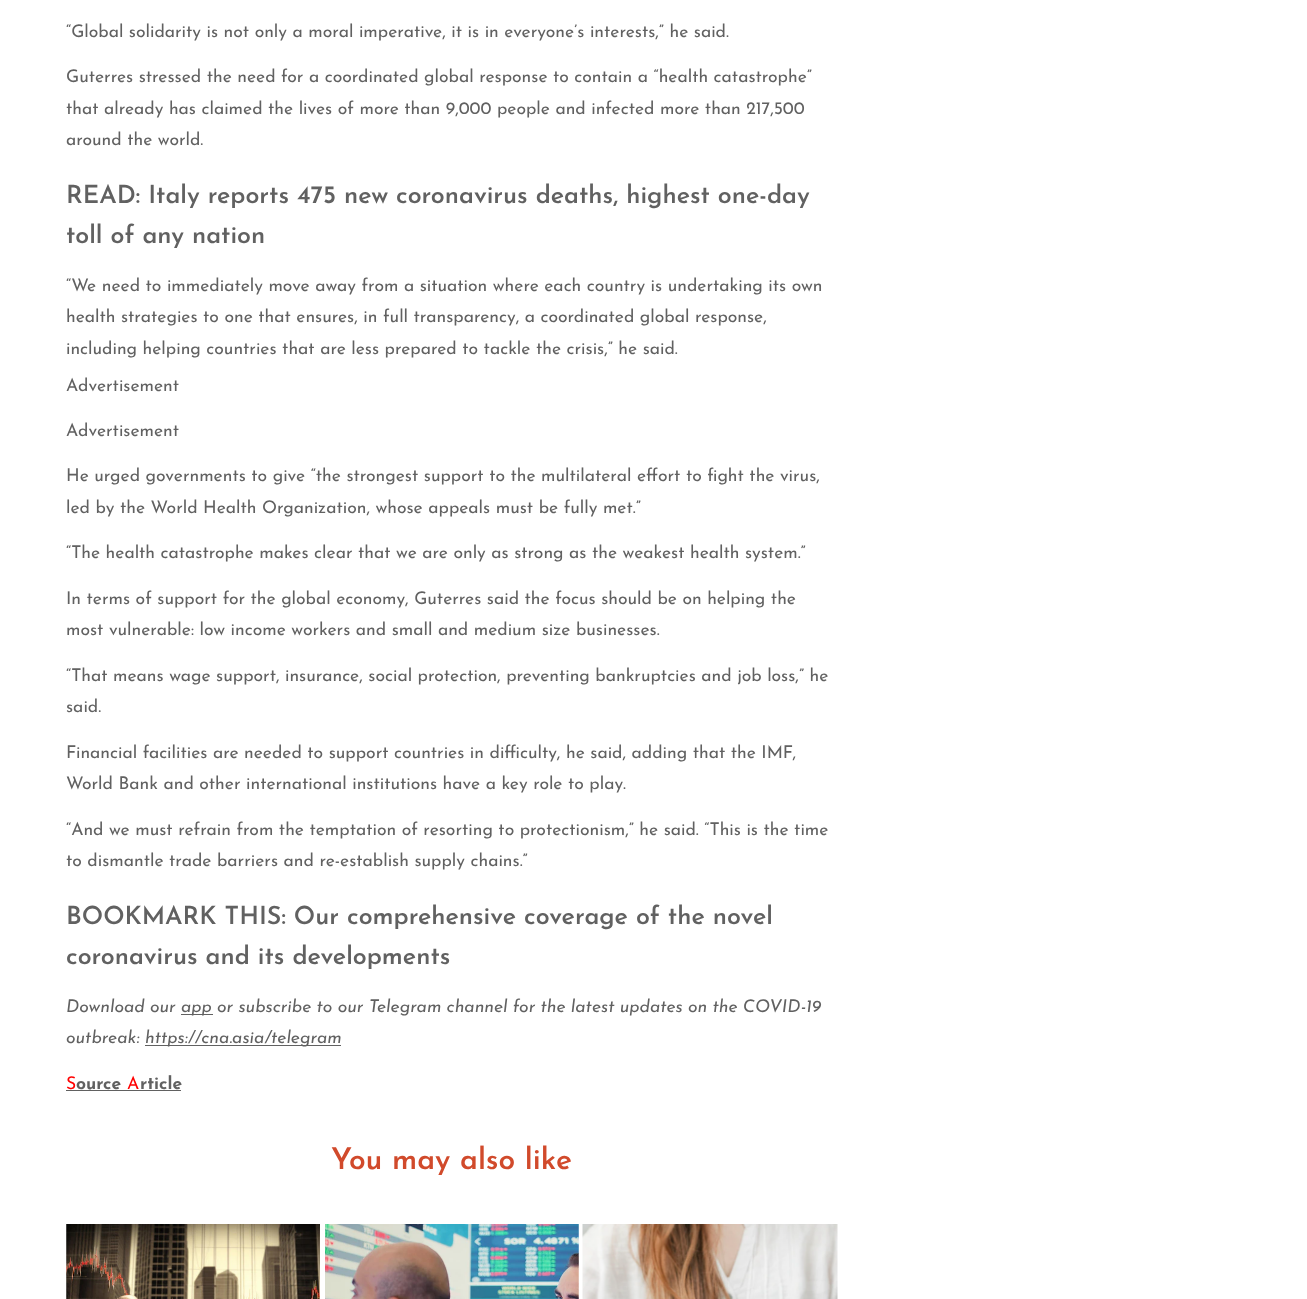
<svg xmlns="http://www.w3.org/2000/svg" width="1307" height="1299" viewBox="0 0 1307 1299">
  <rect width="100%" height="100%" fill="#fff"/>
  <path d="M181 1014h32v1H181z" fill="#616161"/>
  <path d="M145 1045h196v1H145z" fill="#616161"/>
  <path d="M66 1090h115v1H66z" fill="#616161"/>
  <image x="66" y="1224" width="254" height="75" href="img/1.png"/>
  <image x="325" y="1224" width="254" height="75" href="img/2.png"/>
  <image x="582" y="1224" width="256" height="75" href="img/3.png"/>
  <g font-family="Josefin Sans" font-size="17.5" fill="#616161">
    <text x="66" y="37">“Global solidarity is not only a moral imperative, it is in everyone’s interests,” he said.</text>
    <text x="66" y="82">Guterres stressed the need for a coordinated global response to contain a “health catastrophe”</text>
    <text x="66" y="114">that already has claimed the lives of more than 9,000 people and infected more than 217,500</text>
    <text x="66" y="145">around the world.</text>
  </g>
  <g font-family="Josefin Sans" font-size="25" font-weight="600" fill="#616161">
    <text x="66" y="203">READ: Italy reports 475 new coronavirus deaths, highest one-day</text>
    <text x="66" y="243">toll of any nation</text>
  </g>
  <g font-family="Josefin Sans" font-size="17.5" fill="#616161">
    <text x="66" y="291">“We need to immediately move away from a situation where each country is undertaking its own</text>
    <text x="66" y="322">health strategies to one that ensures, in full transparency, a coordinated global response,</text>
    <text x="66" y="354">including helping countries that are less prepared to tackle the crisis,” he said.</text>
    <text x="66" y="391">Advertisement</text>
    <text x="66" y="436">Advertisement</text>
    <text x="66" y="481">He urged governments to give “the strongest support to the multilateral effort to fight the virus,</text>
    <text x="66" y="513">led by the World Health Organization, whose appeals must be fully met.”</text>
    <text x="66" y="558">“The health catastrophe makes clear that we are only as strong as the weakest health system.”</text>
    <text x="66" y="604">In terms of support for the global economy, Guterres said the focus should be on helping the</text>
    <text x="66" y="635">most vulnerable: low income workers and small and medium size businesses.</text>
    <text x="66" y="681">“That means wage support, insurance, social protection, preventing bankruptcies and job loss,” he</text>
    <text x="66" y="712">said.</text>
    <text x="66" y="758">Financial facilities are needed to support countries in difficulty, he said, adding that the IMF,</text>
    <text x="66" y="789">World Bank and other international institutions have a key role to play.</text>
    <text x="66" y="835">“And we must refrain from the temptation of resorting to protectionism,” he said. “This is the time</text>
    <text x="66" y="866">to dismantle trade barriers and re-establish supply chains.”</text>
  </g>
  <g font-family="Josefin Sans" font-size="25" font-weight="600" fill="#616161">
    <text x="66" y="924">BOOKMARK THIS: Our comprehensive coverage of the novel</text>
    <text x="66" y="964">coronavirus and its developments</text>
  </g>
  <g font-family="Josefin Sans" font-size="17.5" font-style="italic" fill="#616161">
    <text x="66" y="1012">Download our</text>
    <text x="181" y="1012">app or subscribe to our Telegram channel for the latest updates on the COVID-19</text>
    <text x="66" y="1043">outbreak:</text>
    <text x="145" y="1043">https://cna.asia/telegram</text>
  </g>
  <text x="66" y="1089" font-family="Josefin Sans" font-size="17.5" fill="#f00">S</text>
  <text x="76" y="1089" font-family="Josefin Sans" font-size="17.5" font-weight="bold" fill="#616161">ource</text>
  <text x="127" y="1089" font-family="Josefin Sans" font-size="17.5" fill="#f00">A</text>
  <text x="140" y="1089" font-family="Josefin Sans" font-size="17.5" font-weight="bold" fill="#616161">rticle</text>
  <text x="331" y="1169" font-family="Josefin Sans" font-size="30" font-weight="600" fill="#d14a2b">You may also like</text>
</svg>
